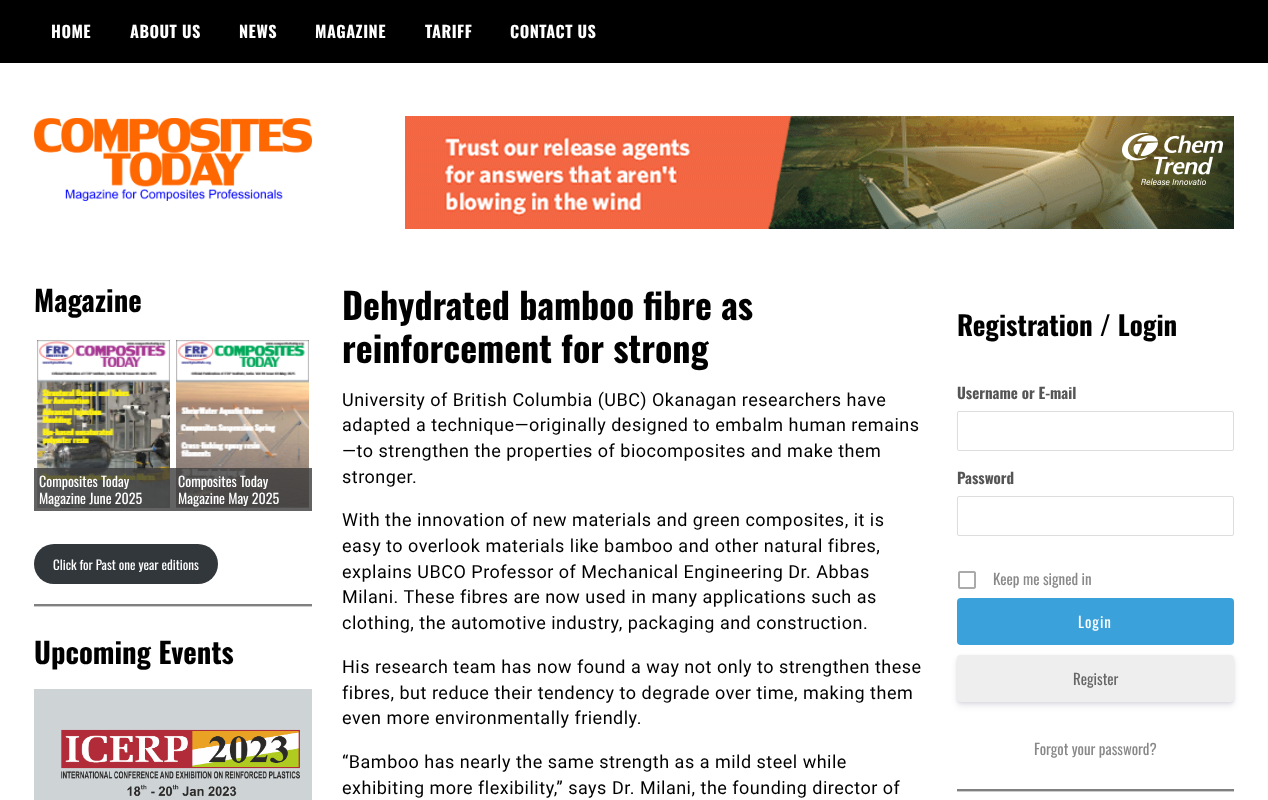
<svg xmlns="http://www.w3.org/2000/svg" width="1268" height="800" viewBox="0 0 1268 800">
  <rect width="100%" height="100%" fill="#fff"/>
  <path d="M0 0h1268v63H0z" fill="#000"/>
  <image x="34" y="118" width="278" height="83" href="img/1.png"/>
  <image x="405" y="116" width="829" height="113" href="img/2.png"/>
  <image x="37" y="340" width="133" height="168" href="img/3.png"/>
  <path d="M34 468h139v43H34z" fill="#3c3c3ccc"/>
  <image x="176" y="340" width="133" height="168" href="img/4.png"/>
  <path d="M173 468h139v43H173z" fill="#3c3c3ccc"/>
  <rect x="34" y="544" width="184" height="40" rx="20" fill="#32373c"/>
  <path d="M34 606h278v1H34z" fill="#ccc"/>
  <path d="M34 604h278v2H34z" fill="#808080"/>
  <path d="M34 689h278v111H34z" fill="#ced3d5"/>
  <image x="61" y="729" width="239" height="68" href="img/5.png"/>
  <rect x="957.5" y="411.5" width="276" height="39" rx="1.5" fill="none" stroke="#ddd"/>
  <rect x="957.5" y="496.5" width="276" height="39" rx="1.5" fill="none" stroke="#ddd"/>
  <image x="958" y="571" width="18" height="18" href="img/6.png"/>
  <rect x="957" y="598" width="277" height="47" rx="4" fill="#3ba1da"/>
  <rect x="957" y="656" width="277" height="47" rx="4" fill="#00000014" filter="blur(1.5px)"/>
  <rect x="957" y="659" width="277" height="47" rx="4" fill="#32325d1c" filter="blur(3px)"/>
  <rect x="957" y="655" width="277" height="47" rx="4" fill="#eee"/>
  <path d="M957 791h277v1H957z" fill="#ccc"/>
  <path d="M957 789h277v2H957z" fill="#808080"/>
  <g font-family="Oswald" font-size="16.25" font-weight="bold" letter-spacing="0.5" fill="#fff">
    <text x="51" y="38">HOME</text>
    <text x="130" y="38">ABOUT US</text>
    <text x="239" y="38">NEWS</text>
    <text x="315" y="38">MAGAZINE</text>
    <text x="425" y="38">TARIFF</text>
    <text x="510" y="38">CONTACT US</text>
  </g>
  <text x="34" y="312" font-family="Oswald" font-size="28.75" font-weight="bold" fill="#000">Magazine</text>
  <g font-family="Oswald" font-size="14" fill="#fff">
    <text x="39" y="487">Composites Today</text>
    <text x="39" y="504">Magazine June 2025</text>
    <text x="178" y="487">Composites Today</text>
    <text x="178" y="504">Magazine May 2025</text>
  </g>
  <text x="53" y="570" font-family="Oswald" font-size="13" fill="#fff">Click for Past one year editions</text>
  <text x="34" y="664" font-family="Oswald" font-size="28.75" font-weight="bold" fill="#000">Upcoming Events</text>
  <g font-family="Oswald" font-size="36" font-weight="bold" fill="#000">
    <text x="342" y="320">Dehydrated bamboo fibre as</text>
    <text x="342" y="363">reinforcement for strong</text>
  </g>
  <g font-family="Roboto" font-size="18" letter-spacing="0.5" fill="#000">
    <text x="342" y="406">University of British Columbia (UBC) Okanagan researchers have</text>
    <text x="342" y="431">adapted a technique—originally designed to embalm human remains</text>
    <text x="342" y="457">—to strengthen the properties of biocomposites and make them</text>
    <text x="342" y="483">stronger.</text>
    <text x="342" y="526">With the innovation of new materials and green composites, it is</text>
    <text x="342" y="552">easy to overlook materials like bamboo and other natural fibres,</text>
    <text x="342" y="578">explains UBCO Professor of Mechanical Engineering Dr. Abbas</text>
    <text x="342" y="603">Milani. These fibres are now used in many applications such as</text>
    <text x="342" y="629">clothing, the automotive industry, packaging and construction.</text>
    <text x="342" y="673">His research team has now found a way not only to strengthen these</text>
    <text x="342" y="699">fibres, but reduce their tendency to degrade over time, making them</text>
    <text x="342" y="724">even more environmentally friendly.</text>
    <text x="342" y="768">“Bamboo has nearly the same strength as a mild steel while</text>
    <text x="342" y="794">exhibiting more flexibility,” says Dr. Milani, the founding director of</text>
  </g>
  <text x="957" y="336" font-family="Oswald" font-size="27" font-weight="bold" fill="#000">Registration / Login</text>
  <g font-family="Oswald" font-size="15" font-weight="bold" fill="#555">
    <text x="957" y="399">Username or E-mail</text>
    <text x="957" y="484">Password</text>
  </g>
  <text x="993" y="585" font-family="Oswald" font-size="15" fill="#888">Keep me signed in</text>
  <text x="1078" y="628" font-family="Oswald" font-size="15" letter-spacing="1" fill="#fff">Login</text>
  <text x="1073" y="685" font-family="Oswald" font-size="15" fill="#666">Register</text>
  <text x="1034" y="755" font-family="Oswald" font-size="15" fill="#888">Forgot your password?</text>
</svg>
